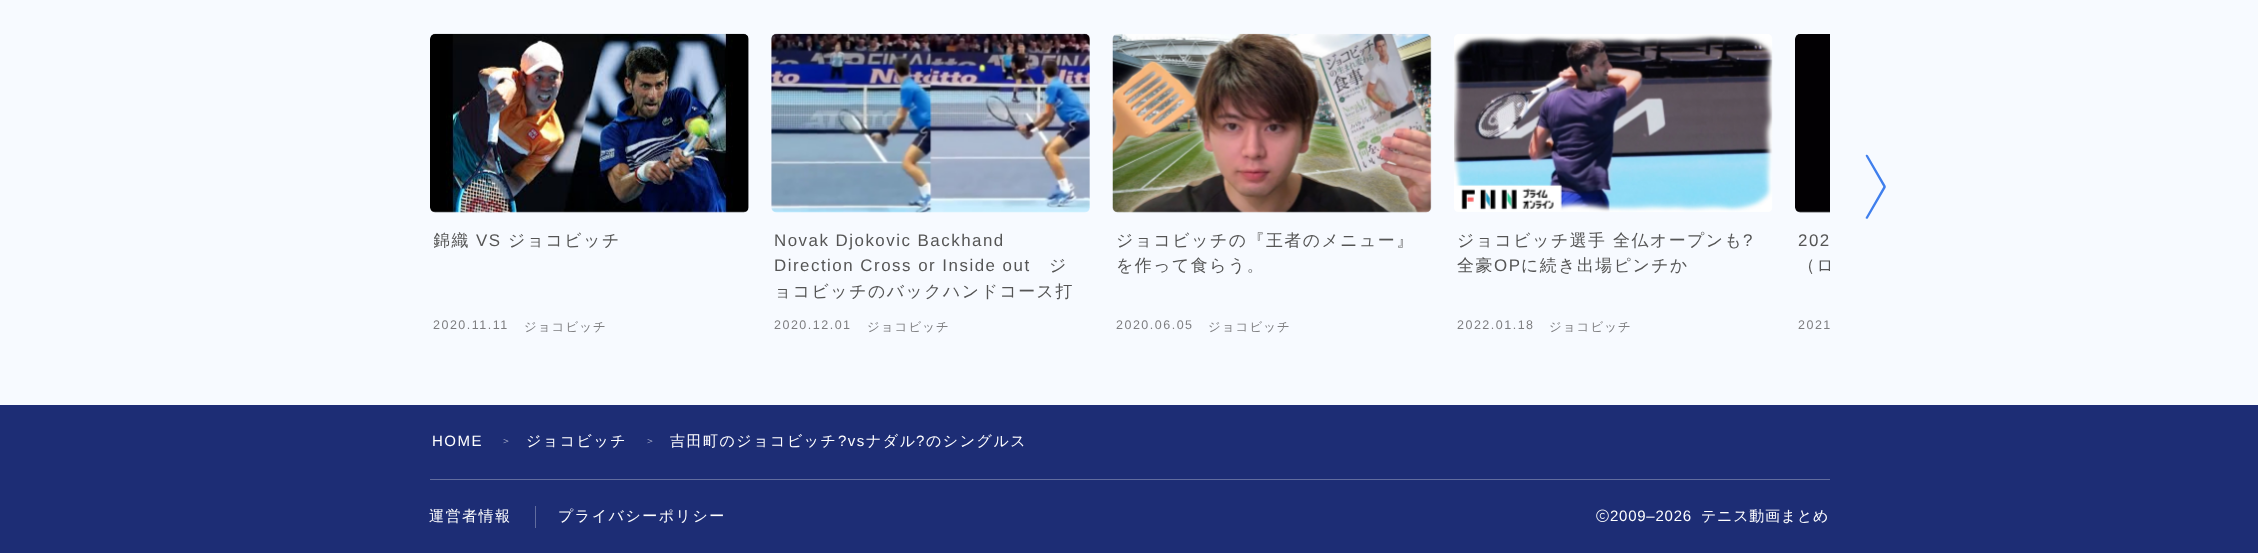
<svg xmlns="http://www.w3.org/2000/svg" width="2258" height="553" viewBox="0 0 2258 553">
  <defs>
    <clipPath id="clip1"><path d="M434 229h311v25H434z"/></clipPath>
    <clipPath id="clip2"><path d="M1799 229h31v50H1799z"/></clipPath>
  </defs>
  <rect width="100%" height="100%" fill="#f7faff"/>
  <path d="M1866 155C1867 154.5 1867.5 155 1868 155.5L1885.5 185.5C1886 186.5 1885.5 187 1885 187.5C1884.5 187.5 1883.5 187.5 1883.5 187L1866 156.5C1865.5 156 1865.5 155.5 1866 155Z" fill="#407fed"/>
  <path d="M1885 186C1885.5 186.5 1886 187.5 1885.5 188L1868 218C1867.5 219 1867 219 1866 218.5C1865.5 218.5 1865.5 217.5 1866 217L1883.5 186.5C1883.5 186 1884.5 186 1885 186Z" fill="#407fed"/>
  <image x="430" y="33" width="319" height="180" href="img/1.png"/>
  <image x="771" y="33" width="319" height="180" href="img/2.png"/>
  <image x="1112" y="33" width="320" height="180" href="img/3.png"/>
  <image x="1454" y="34" width="319" height="178" href="img/4.png"/>
  <image x="1795" y="34" width="35" height="179" href="img/5.png"/>
  <path d="M0 405h2258v148H0z" fill="#1d2d75"/>
  <path d="M430 479h1400v1H430z" fill="#616c9e"/>
  <path d="M535 506h1v22H535z" fill="#616c9e"/>
  <image x="1596" y="509" width="13" height="13" href="img/6.png"/>
  <g clip-path="url(#clip1)">
    <text x="433" y="246" font-family="WenQuanYi Zen Hei" font-size="16.9" font-weight="500" letter-spacing="1.5" fill="#555">錦織</text>
  </g>
  <text x="476" y="246" font-family="Liberation Sans" font-size="16.9" letter-spacing="1.5" fill="#555">VS</text>
  <text x="508" y="246" font-family="WenQuanYi Zen Hei" font-size="16.9" font-weight="500" letter-spacing="1.5" fill="#555">ジョコビッチ</text>
  <text x="433" y="329" font-family="Liberation Sans" font-size="12.5" letter-spacing="1.5" fill="#7e7e80">2020.11.11</text>
  <text x="524" y="331" font-family="WenQuanYi Zen Hei" font-size="12.5" font-weight="500" letter-spacing="1" fill="#7e7e80">ジョコビッチ</text>
  <g font-family="Liberation Sans" font-size="16.9" letter-spacing="1.5" fill="#555">
    <text x="774" y="246">Novak Djokovic Backhand</text>
    <text x="774" y="271">Direction Cross or Inside out</text>
  </g>
  <g font-family="WenQuanYi Zen Hei" font-size="16.9" font-weight="500" letter-spacing="1.5" fill="#555">
    <text x="1049" y="271">ジ</text>
    <text x="774" y="297">ョコビッチのバックハンドコース打</text>
  </g>
  <text x="774" y="329" font-family="Liberation Sans" font-size="12.5" letter-spacing="1.5" fill="#7e7e80">2020.12.01</text>
  <text x="867" y="331" font-family="WenQuanYi Zen Hei" font-size="12.5" font-weight="500" letter-spacing="1" fill="#7e7e80">ジョコビッチ</text>
  <g font-family="WenQuanYi Zen Hei" font-size="16.9" font-weight="500" letter-spacing="1.5" fill="#555">
    <text x="1116" y="246">ジョコビッチの『王者のメニュー』</text>
    <text x="1116" y="271">を作って食らう。</text>
  </g>
  <text x="1116" y="329" font-family="Liberation Sans" font-size="12.5" letter-spacing="1.5" fill="#7e7e80">2020.06.05</text>
  <text x="1208" y="331" font-family="WenQuanYi Zen Hei" font-size="12.5" font-weight="500" letter-spacing="1" fill="#7e7e80">ジョコビッチ</text>
  <text x="1457" y="246" font-family="WenQuanYi Zen Hei" font-size="16.9" font-weight="500" letter-spacing="1.5" fill="#555">ジョコビッチ選手 全仏オープンも</text>
  <text x="1743" y="246" font-family="Liberation Sans" font-size="16.9" letter-spacing="1.5" fill="#555">?</text>
  <text x="1457" y="271" font-family="WenQuanYi Zen Hei" font-size="16.9" font-weight="500" letter-spacing="1.5" fill="#555">全豪</text>
  <text x="1494" y="271" font-family="Liberation Sans" font-size="16.9" letter-spacing="1.5" fill="#555">OP</text>
  <text x="1521" y="271" font-family="WenQuanYi Zen Hei" font-size="16.9" font-weight="500" letter-spacing="1.5" fill="#555">に続き出場ピンチか</text>
  <text x="1457" y="329" font-family="Liberation Sans" font-size="12.5" letter-spacing="1.5" fill="#7e7e80">2022.01.18</text>
  <text x="1549" y="331" font-family="WenQuanYi Zen Hei" font-size="12.5" font-weight="500" letter-spacing="1" fill="#7e7e80">ジョコビッチ</text>
  <text x="1798" y="246" font-family="Liberation Sans" font-size="16.9" letter-spacing="1.5" fill="#555">202</text>
  <g clip-path="url(#clip2)">
    <text x="1798" y="271" font-family="WenQuanYi Zen Hei" font-size="16.9" font-weight="500" letter-spacing="1.5" fill="#555">（ロ</text>
  </g>
  <text x="1798" y="329" font-family="Liberation Sans" font-size="12.5" letter-spacing="1.5" fill="#7e7e80">2021</text>
  <text x="432" y="446" font-family="Liberation Sans" font-size="15" letter-spacing="1.5" fill="#fff">HOME</text>
  <text x="501" y="444" font-family="WenQuanYi Zen Hei" font-size="10" font-weight="500" letter-spacing="1" fill="#bbc0d6">＞</text>
  <text x="526" y="446" font-family="WenQuanYi Zen Hei" font-size="15" font-weight="500" letter-spacing="1.5" fill="#fff">ジョコビッチ</text>
  <text x="645" y="444" font-family="WenQuanYi Zen Hei" font-size="10" font-weight="500" letter-spacing="1" fill="#bbc0d6">＞</text>
  <text x="670" y="446" font-family="WenQuanYi Zen Hei" font-size="15" font-weight="500" letter-spacing="1.5" fill="#fff">吉田町のジョコビッチ</text>
  <text x="838" y="446" font-family="Liberation Sans" font-size="15" letter-spacing="1.5" fill="#fff">?vs</text>
  <text x="866" y="446" font-family="WenQuanYi Zen Hei" font-size="15" font-weight="500" letter-spacing="1.5" fill="#fff">ナダル</text>
  <text x="916" y="446" font-family="Liberation Sans" font-size="15" letter-spacing="1.5" fill="#fff">?</text>
  <g font-family="WenQuanYi Zen Hei" font-size="15" font-weight="500" letter-spacing="1.5" fill="#fff">
    <text x="926" y="446">のシングルス</text>
    <text x="429" y="521">運営者情報</text>
    <text x="558" y="521">プライバシーポリシー</text>
  </g>
  <text x="1610" y="521" font-family="Liberation Sans" font-size="15" letter-spacing="0.75" fill="#fff">2009–2026</text>
  <text x="1701" y="521" font-family="WenQuanYi Zen Hei" font-size="15" font-weight="500" letter-spacing="0.75" fill="#fff">テニス動画まとめ</text>
</svg>
